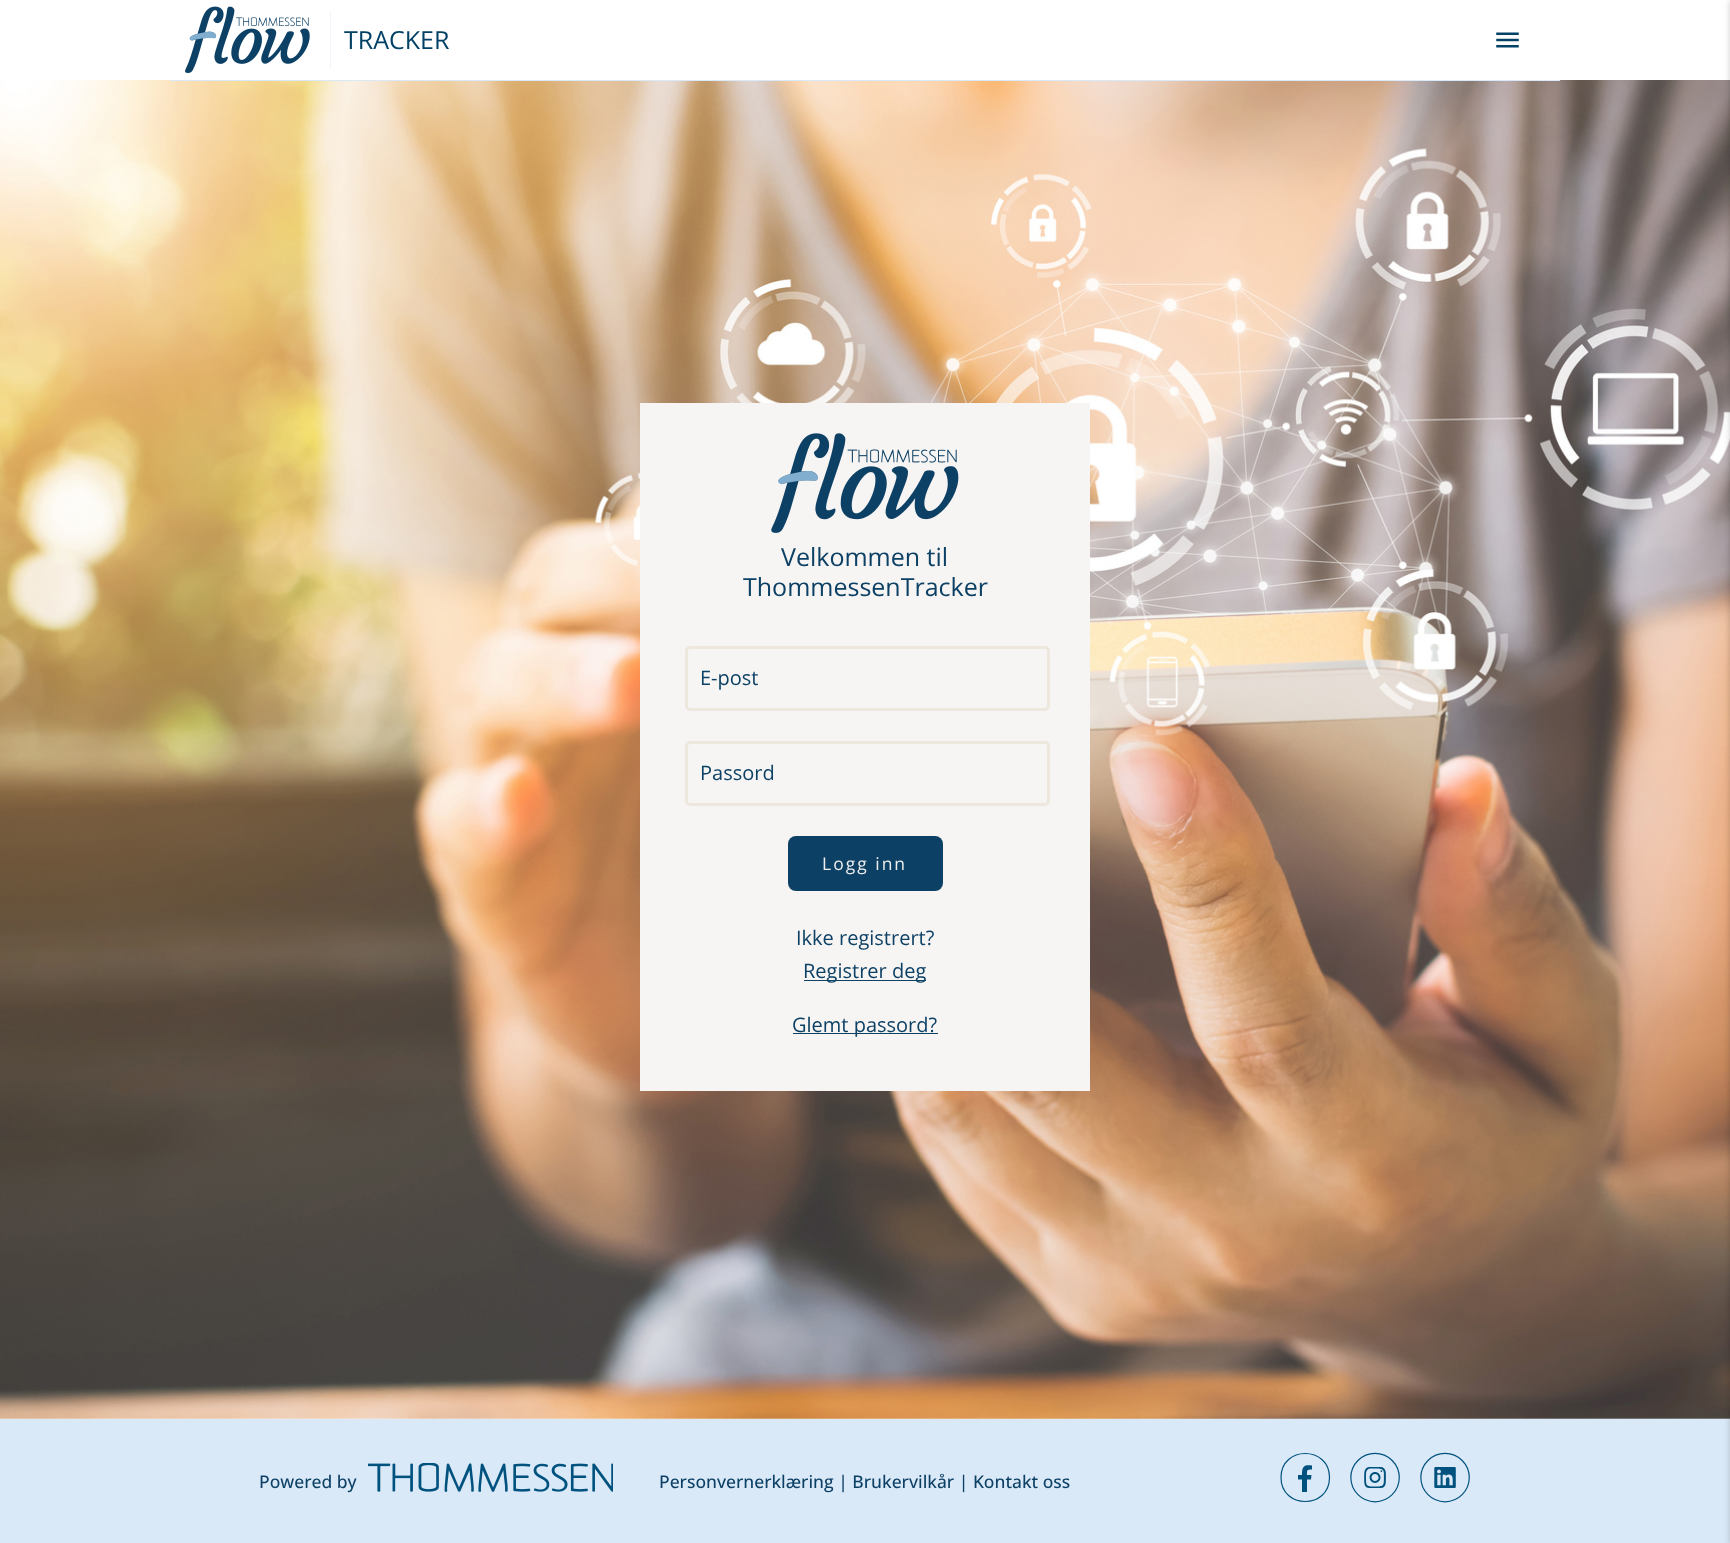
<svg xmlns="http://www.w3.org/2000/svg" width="1730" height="1543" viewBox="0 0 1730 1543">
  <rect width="100%" height="100%" fill="#fff"/>
  <image x="0" y="80" width="1730" height="1339" href="img/3.png"/>
  <path d="M170 80h1390v1H170z" fill="#dae9f8"/>
  <image x="185" y="6" width="125" height="67" href="img/1.png"/>
  <path d="M330 11h1v58H330z" fill="#f0f6fc"/>
  <image x="1496" y="32" width="23" height="16" href="img/2.png"/>
  <path d="M0 1419h1730v124H0z" fill="#dae9f8"/>
  <path d="M1730 1h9v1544H1730z" fill="#00000033" filter="blur(3px)"/>
  <path d="M640 403h450v688H640z" fill="#f6f5f3"/>
  <image x="771" y="433" width="188" height="100" href="img/4.png"/>
  <rect x="686.5" y="647.5" width="362" height="62" rx="3.5" fill="none" stroke="#ede7de" stroke-width="3"/>
  <rect x="686.5" y="742.5" width="362" height="62" rx="3.5" fill="none" stroke="#ede7de" stroke-width="3"/>
  <rect x="788" y="836" width="155" height="55" rx="8" fill="#0d4065"/>
  <path d="M804 980h122v1H804z" fill="#0d4065"/>
  <path d="M793 1033h145v1H793z" fill="#0d4065"/>
  <image x="368" y="1463" width="245" height="29" href="img/5.png"/>
  <path d="M1298 1475V1479.5H1302V1492H1307V1479.5H1311L1311.5 1475H1307C1307 1470 1306.5 1469.5 1312 1469.5V1465.5C1303.5 1464.5 1302 1466.5 1302 1475Z" fill="#00527e" fill-rule="evenodd"/>
  <path d="M1281 1477.5C1281 1445.5 1329.5 1445.5 1329.5 1477.5C1329.5 1509.5 1281 1509.5 1281 1477.5Z" fill="none" stroke="#00527e" stroke-width="1.2"/>
  <image x="1350" y="1452" width="50" height="51" href="img/6.png"/>
  <image x="1420" y="1452" width="50" height="51" href="img/7.png"/>
  <text x="344" y="49" font-family="Open Sans" font-size="25" fill="#004165">TRACKER</text>
  <g font-family="Open Sans" font-size="25" fill="#0d4065">
    <text x="781" y="566">Velkommen til</text>
    <text x="743" y="596">ThommessenTracker</text>
  </g>
  <g font-family="Open Sans" font-size="20" fill="#0d4065">
    <text x="700" y="685">E-post</text>
    <text x="700" y="780">Passord</text>
  </g>
  <text x="822" y="870" font-family="Open Sans" font-size="17.5" letter-spacing="2" fill="#eee">Logg inn</text>
  <g font-family="Open Sans" font-size="20" fill="#0d4065">
    <text x="796" y="945">Ikke registrert?</text>
    <text x="803" y="978">Registrer deg</text>
    <text x="792" y="1032">Glemt passord?</text>
  </g>
  <g font-family="Open Sans" font-size="17.5" font-weight="500" fill="#0d4065">
    <text x="259" y="1488">Powered by</text>
    <text x="659" y="1488">Personvernerklæring | Brukervilkår | Kontakt oss</text>
  </g>
</svg>
